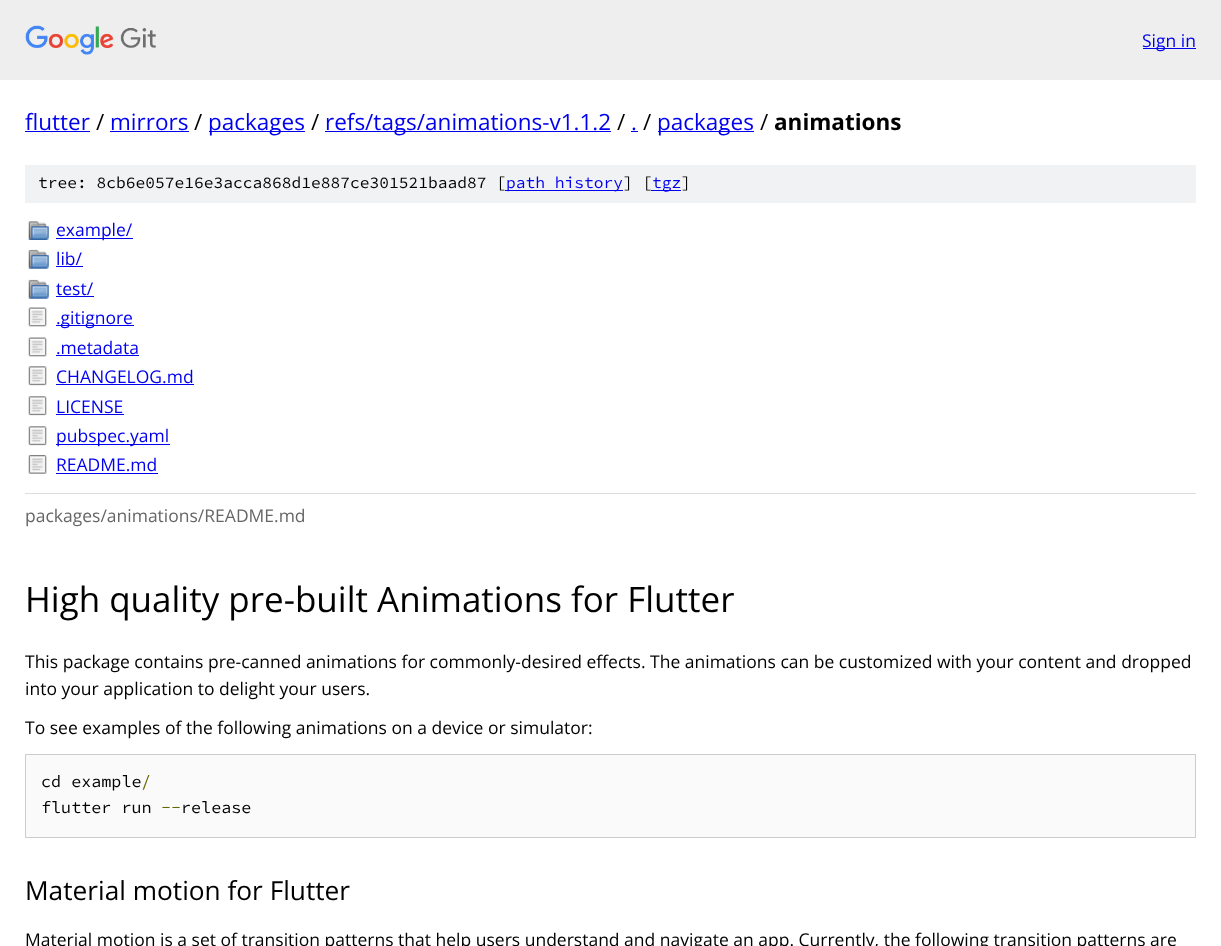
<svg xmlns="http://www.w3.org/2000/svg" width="1221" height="946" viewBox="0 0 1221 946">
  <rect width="100%" height="100%" fill="#fff"/>
  <path d="M0 0h1221v80H0z" fill="#eee"/>
  <image x="25" y="25" width="131" height="30" href="img/1.png"/>
  <path d="M1143 48h53v1H1143z" fill="#00e"/>
  <path d="M25 131h65v1H25z" fill="#00e"/>
  <path d="M110 131h79v1H110z" fill="#00e"/>
  <path d="M209 131h96v1H209z" fill="#00e"/>
  <path d="M325 131h286v1H325z" fill="#00e"/>
  <path d="M631 131h7v1H631z" fill="#00e"/>
  <path d="M658 131h96v1H658z" fill="#00e"/>
  <path d="M25 165h1171v38H25z" fill="#f1f2f3"/>
  <path d="M505 190h118v1H505z" fill="#00e"/>
  <path d="M651 190h30v1H651z" fill="#00e"/>
  <image x="28" y="221" width="21" height="19" href="img/2.png"/>
  <path d="M56 238h77v1H56z" fill="#00e"/>
  <image x="28" y="249" width="21" height="20" href="img/3.png"/>
  <path d="M56 266h27v1H56z" fill="#00e"/>
  <image x="28" y="279" width="21" height="20" href="img/4.png"/>
  <path d="M56 296h38v1H56z" fill="#00e"/>
  <image x="28" y="307" width="19" height="20" href="img/5.png"/>
  <path d="M56 325h78v1H56z" fill="#00e"/>
  <image x="28" y="337" width="19" height="20" href="img/5.png"/>
  <path d="M56 355h83v1H56z" fill="#00e"/>
  <image x="28" y="366" width="19" height="20" href="img/6.png"/>
  <path d="M56 384h138v1H56z" fill="#00e"/>
  <image x="28" y="396" width="19" height="20" href="img/6.png"/>
  <path d="M56 414h68v1H56z" fill="#00e"/>
  <image x="28" y="426" width="19" height="20" href="img/6.png"/>
  <path d="M56 444h114v1H56z" fill="#00e"/>
  <image x="28" y="455" width="19" height="19" href="img/7.png"/>
  <path d="M56 473h102v1H56z" fill="#00e"/>
  <path d="M25 493h1171v1H25z" fill="#ddd"/>
  <path d="M25.5 754.5h1170v83H25.5z" fill="#fafafa" stroke="#ccc"/>
  <text x="1142" y="47" font-family="Open Sans" font-size="17.5" fill="#00e">Sign in</text>
  <text x="25" y="130" font-family="Open Sans" font-size="22.5" fill="#00e">flutter</text>
  <text x="96" y="130" font-family="Open Sans" font-size="22.5" fill="#000">/</text>
  <text x="110" y="130" font-family="Open Sans" font-size="22.5" fill="#00e">mirrors</text>
  <text x="194" y="130" font-family="Open Sans" font-size="22.5" fill="#000">/</text>
  <text x="208" y="130" font-family="Open Sans" font-size="22.5" fill="#00e">packages</text>
  <text x="311" y="130" font-family="Open Sans" font-size="22.5" fill="#000">/</text>
  <text x="325" y="130" font-family="Open Sans" font-size="22.5" fill="#00e">refs/tags/animations-v1.1.2</text>
  <text x="617" y="130" font-family="Open Sans" font-size="22.5" fill="#000">/</text>
  <text x="631" y="130" font-family="Open Sans" font-size="22.5" fill="#00e">.</text>
  <text x="643" y="130" font-family="Open Sans" font-size="22.5" fill="#000">/</text>
  <text x="657" y="130" font-family="Open Sans" font-size="22.5" fill="#00e">packages</text>
  <text x="760" y="130" font-family="Open Sans" font-size="22.5" fill="#000">/</text>
  <text x="774" y="130" font-family="Open Sans" font-size="22.5" font-weight="bold" fill="#000">animations</text>
  <text x="38" y="188" font-family="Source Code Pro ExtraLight" font-size="16.25" font-weight="200" fill="#000">tree: 8cb6e057e16e3acca868d1e887ce301521baad87 [</text>
  <text x="506" y="188" font-family="Source Code Pro ExtraLight" font-size="16.25" font-weight="200" fill="#00e">path history</text>
  <text x="623" y="188" font-family="Source Code Pro ExtraLight" font-size="16.25" font-weight="200" fill="#000">] [</text>
  <text x="652" y="188" font-family="Source Code Pro ExtraLight" font-size="16.25" font-weight="200" fill="#00e">tgz</text>
  <text x="681" y="188" font-family="Source Code Pro ExtraLight" font-size="16.25" font-weight="200" fill="#000">]</text>
  <g font-family="Open Sans" font-size="17.5" fill="#00e">
    <text x="56" y="236">example/</text>
    <text x="56" y="265">lib/</text>
    <text x="56" y="295">test/</text>
    <text x="56" y="324">.gitignore</text>
    <text x="56" y="354">.metadata</text>
    <text x="56" y="383">CHANGELOG.md</text>
    <text x="56" y="413">LICENSE</text>
    <text x="56" y="442">pubspec.yaml</text>
    <text x="56" y="471">README.md</text>
  </g>
  <text x="25" y="522" font-family="Open Sans" font-size="17.5" fill="#666">packages/animations/README.md</text>
  <text x="25" y="612" font-family="Open Sans" font-size="35" fill="#000">High quality pre-built Animations for Flutter</text>
  <g font-family="Open Sans" font-size="17.5" fill="#000">
    <text x="25" y="668">This package contains pre-canned animations for commonly-desired effects. The animations can be customized with your content and dropped</text>
    <text x="25" y="695">into your application to delight your users.</text>
    <text x="25" y="734">To see examples of the following animations on a device or simulator:</text>
  </g>
  <text x="41" y="787" font-family="Source Code Pro ExtraLight" font-size="16.75" font-weight="200" fill="#000">cd example</text>
  <text x="141" y="787" font-family="Source Code Pro ExtraLight" font-size="16.75" font-weight="200" fill="#660">/</text>
  <text x="41" y="813" font-family="Source Code Pro ExtraLight" font-size="16.75" font-weight="200" fill="#000">flutter run</text>
  <text x="161" y="813" font-family="Source Code Pro ExtraLight" font-size="16.75" font-weight="200" fill="#660">--</text>
  <text x="181" y="813" font-family="Source Code Pro ExtraLight" font-size="16.75" font-weight="200" fill="#000">release</text>
  <text x="25" y="900" font-family="Open Sans" font-size="26.25" fill="#000">Material motion for Flutter</text>
  <text x="25" y="946" font-family="Open Sans" font-size="17.5" fill="#000">Material motion is a set of transition patterns that help users understand and navigate an app. Currently, the following transition patterns are</text>
</svg>
